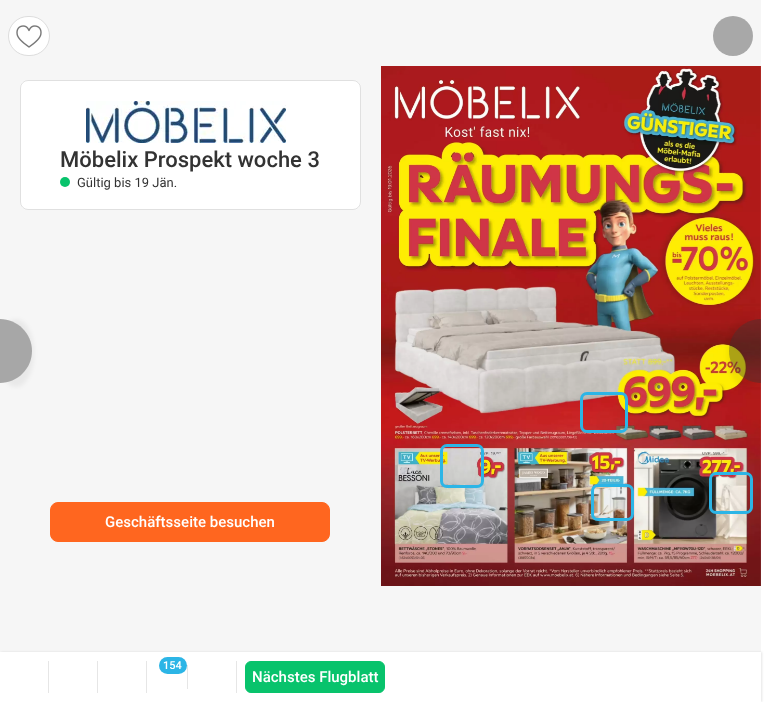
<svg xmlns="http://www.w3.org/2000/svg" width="776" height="702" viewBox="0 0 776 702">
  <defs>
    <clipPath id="clip1"><path d="M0 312H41V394H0ZM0 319C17.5 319 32 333.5 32 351C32 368.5 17.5 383 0 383Z" clip-rule="evenodd"/></clipPath>
    <clipPath id="clip2"><path d="M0 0h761v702H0z"/></clipPath>
    <clipPath id="clip3"><path d="M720 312H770V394H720ZM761 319V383C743.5 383 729 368.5 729 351C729 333.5 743.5 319 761 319Z" clip-rule="evenodd"/></clipPath>
  </defs>
  <rect width="100%" height="100%" fill="#fff"/>
  <path d="M0 0h761v652H0z" fill="#f6f6f6"/>
  <rect x="8.5" y="16.5" width="41" height="39" rx="19.5" fill="#fff" stroke="#ddd"/>
  <image x="16" y="25" width="26" height="23" href="img/1.png"/>
  <circle cx="733" cy="36" r="20" fill="#a8a8a8"/>
  <g clip-path="url(#clip1)">
    <rect x="-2" y="319" width="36" height="68" rx="34" fill="#0000000d" filter="blur(2px)"/>
  </g>
  <path d="M0 319C17.5 319 32 333.5 32 351C32 368.5 17.5 383 0 383Z" fill="#33333366"/>
  <rect x="20" y="80" width="341" height="130" rx="8" fill="#fff"/>
  <rect x="20.5" y="80.5" width="340" height="129" rx="7.5" fill="none" stroke="#0000001f"/>
  <image x="86" y="101" width="200" height="42" href="img/2.png"/>
  <circle cx="65" cy="182" r="5" fill="#08c36c"/>
  <rect x="50.5" y="502.5" width="279" height="39" rx="7.5" fill="#ff661f" stroke="#ff661f"/>
  <image x="381" y="66" width="380" height="520" href="img/3.png"/>
  <rect x="581.5" y="393.5" width="45" height="38" rx="5.5" fill="none" stroke="#2cb5e6" stroke-width="3"/>
  <rect x="441.5" y="445.5" width="41" height="41" rx="5.5" fill="none" stroke="#2cb5e6" stroke-width="3"/>
  <rect x="592.5" y="485.5" width="40" height="34" rx="5.5" fill="none" stroke="#2cb5e6" stroke-width="3"/>
  <rect x="710.5" y="473.5" width="41" height="39" rx="5.5" fill="none" stroke="#2cb5e6" stroke-width="3"/>
  <g clip-path="url(#clip2)">
    <g clip-path="url(#clip3)">
      <rect x="727" y="319" width="36" height="68" rx="34" fill="#0000000d" filter="blur(2px)"/>
    </g>
  </g>
  <path d="M761 319V383C743.5 383 729 368.5 729 351C729 333.5 743.5 319 761 319Z" fill="#33333366"/>
  <path d="M1 652h761v50H1z" fill="#0000001a" filter="blur(1px)"/>
  <path d="M0 652h761v50H0z" fill="#fff"/>
  <path d="M48 661h1v32H48z" fill="#e6e6e6"/>
  <path d="M97 661h1v32H97z" fill="#e6e6e6"/>
  <path d="M146 661h1v32H146z" fill="#e6e6e6"/>
  <path d="M187 665h1v24H187z" fill="#e6e6e6"/>
  <rect x="159" y="657" width="28" height="17" rx="8.5" fill="#2cb5e6"/>
  <path d="M236 661h1v32H236z" fill="#e6e6e6"/>
  <rect x="245.5" y="661.5" width="139" height="31" rx="5.5" fill="#08c36c" stroke="#08c36c"/>
  <text x="60" y="167" font-family="Roboto" font-size="22" font-weight="500" fill="#333">Möbelix Prospekt woche 3</text>
  <text x="77" y="187" font-family="Roboto" font-size="13" fill="#333">Gültig bis 19 Jän.</text>
  <text x="105" y="527" font-family="Roboto" font-size="15" font-weight="500" fill="#fff">Geschäftsseite besuchen</text>
  <text x="163" y="669" font-family="Roboto" font-size="11" font-weight="500" fill="#fff">154</text>
  <text x="252" y="682" font-family="Roboto" font-size="15" font-weight="500" fill="#fff">Nächstes Flugblatt</text>
</svg>
